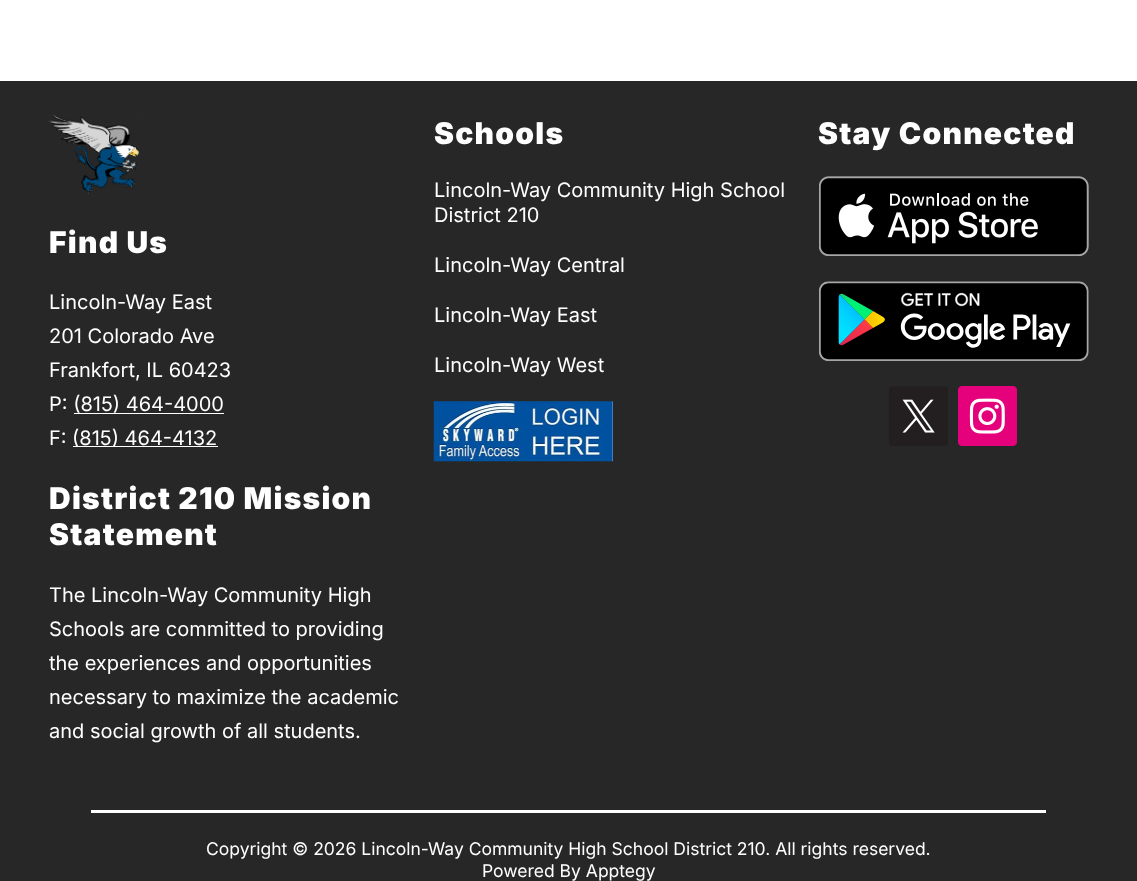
<svg xmlns="http://www.w3.org/2000/svg" width="1137" height="881" viewBox="0 0 1137 881">
  <rect width="100%" height="100%" fill="#fff"/>
  <path d="M0 81h1137v800H0z" fill="#272727"/>
  <image x="433" y="401" width="180" height="61" href="img/1.png"/>
  <image x="819" y="176" width="270" height="80" href="img/2.png"/>
  <image x="819" y="281" width="270" height="80" href="img/3.png"/>
  <image x="889" y="386" width="59" height="60" href="img/4.png"/>
  <image x="958" y="386" width="59" height="60" href="img/5.png"/>
  <image x="48" y="115" width="91" height="79" href="img/6.png"/>
  <path d="M74 413h150v1H74z" fill="#fff"/>
  <path d="M73 446h145v1H73z" fill="#fff"/>
  <path d="M91 810h955v3H91z" fill="#fff"/>
  <text x="434" y="144" font-family="Inter" font-size="30" font-weight="900" letter-spacing="1.25" fill="#fff">Schools</text>
  <g font-family="Inter" font-size="20" fill="#fff">
    <text x="434" y="197">Lincoln-Way Community High School</text>
    <text x="434" y="222">District 210</text>
    <text x="434" y="272">Lincoln-Way Central</text>
    <text x="434" y="322">Lincoln-Way East</text>
    <text x="434" y="372">Lincoln-Way West</text>
  </g>
  <g font-family="Inter" font-size="30" font-weight="900" letter-spacing="1.25" fill="#fff">
    <text x="818" y="144">Stay Connected</text>
    <text x="49" y="253">Find Us</text>
  </g>
  <g font-family="Inter" font-size="20" fill="#fff">
    <text x="49" y="309">Lincoln-Way East</text>
    <text x="49" y="343">201 Colorado Ave</text>
    <text x="49" y="377">Frankfort, IL 60423</text>
    <text x="49" y="411">P: (815) 464-4000</text>
    <text x="49" y="445">F:</text>
    <text x="72" y="445">(815) 464-4132</text>
  </g>
  <g font-family="Inter" font-size="30" font-weight="900" letter-spacing="1.25" fill="#fff">
    <text x="49" y="509">District 210 Mission</text>
    <text x="49" y="545">Statement</text>
  </g>
  <g font-family="Inter" font-size="20" fill="#fff">
    <text x="49" y="602">The Lincoln-Way Community High</text>
    <text x="49" y="636">Schools are committed to providing</text>
    <text x="49" y="670">the experiences and opportunities</text>
    <text x="49" y="704">necessary to maximize the academic</text>
    <text x="49" y="738">and social growth of all students.</text>
  </g>
  <g font-family="Inter" font-size="17.5" fill="#fff">
    <text x="206" y="855">Copyright © 2026 Lincoln-Way Community High School District 210. All rights reserved.</text>
    <text x="482" y="877">Powered By Apptegy</text>
  </g>
</svg>
